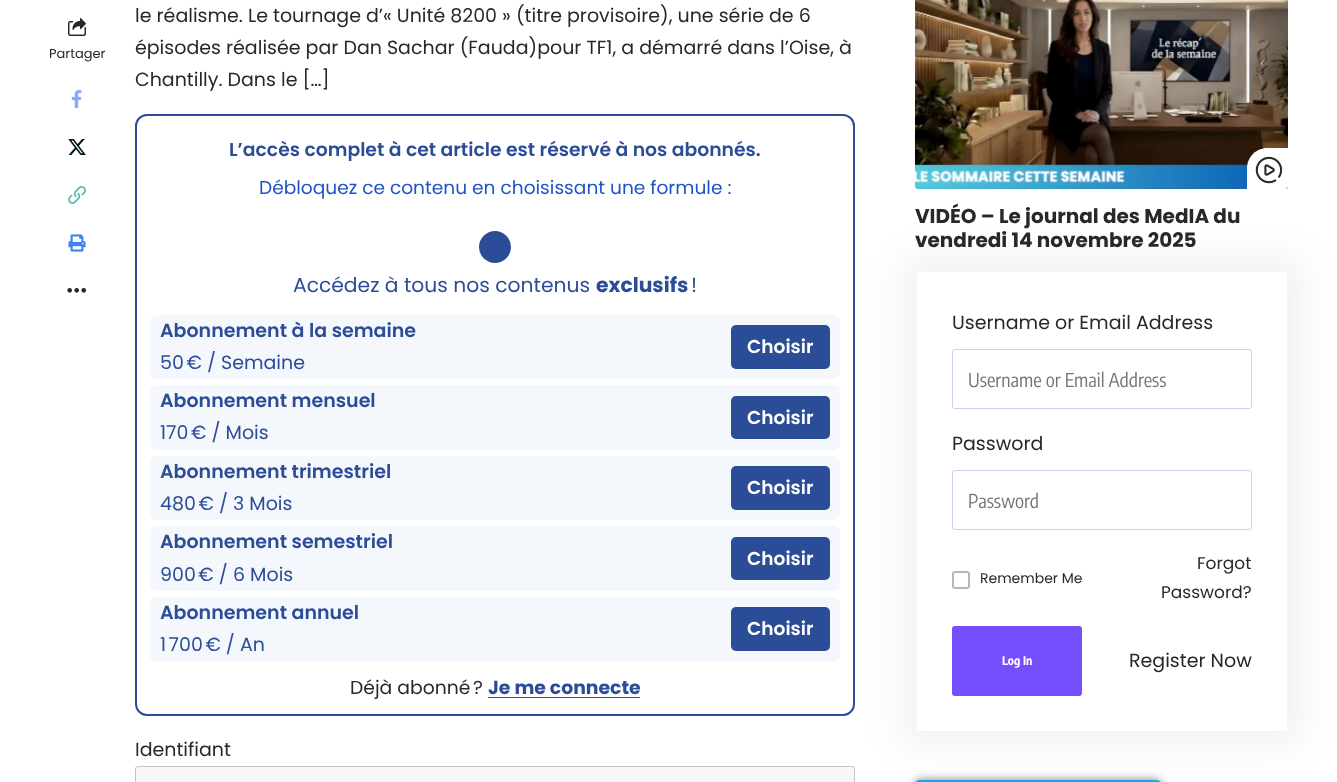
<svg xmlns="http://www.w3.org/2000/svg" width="1337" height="782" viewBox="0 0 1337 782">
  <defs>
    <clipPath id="clip1"><path d="M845 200H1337V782H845ZM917 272H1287V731H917Z" clip-rule="evenodd"/></clipPath>
  </defs>
  <rect width="100%" height="100%" fill="#fff"/>
  <image x="68" y="18" width="18" height="18" href="img/1.png"/>
  <image x="71" y="90" width="11" height="18" href="img/2.png"/>
  <image x="68" y="139" width="18" height="16" href="img/3.png"/>
  <image x="68" y="186" width="18" height="18" href="img/4.png"/>
  <image x="68" y="234" width="18" height="18" href="img/5.png"/>
  <image x="67" y="288" width="20" height="5" href="img/6.png"/>
  <rect x="136" y="115" width="718" height="600" rx="11" fill="none" stroke="#2b4c96" stroke-width="2"/>
  <circle cx="495" cy="247" r="16" fill="#2b4c96"/>
  <rect x="150" y="315" width="690" height="64" rx="7" fill="#f4f7fc"/>
  <rect x="731" y="325" width="99" height="44" rx="5" fill="#2b4c96"/>
  <rect x="150" y="385" width="690" height="65" rx="7" fill="#f4f7fc"/>
  <rect x="731" y="396" width="99" height="43" rx="5" fill="#2b4c96"/>
  <rect x="150" y="456" width="690" height="64" rx="7" fill="#f4f7fc"/>
  <rect x="731" y="466" width="99" height="44" rx="5" fill="#2b4c96"/>
  <rect x="150" y="526" width="690" height="65" rx="7" fill="#f4f7fc"/>
  <rect x="731" y="537" width="99" height="43" rx="5" fill="#2b4c96"/>
  <rect x="150" y="597" width="690" height="65" rx="7" fill="#f4f7fc"/>
  <rect x="731" y="607" width="99" height="44" rx="5" fill="#2b4c96"/>
  <path d="M488 697h152v1H488z" fill="#2b4c96"/>
  <rect x="135" y="766" width="720" height="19" rx="3" fill="#f7f7f7"/>
  <rect x="135.5" y="766.5" width="719" height="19" rx="2.5" fill="none" stroke="#00000033"/>
  <image x="915" y="0" width="373" height="189" href="img/7.png"/>
  <path d="M1267.5 148H1288V186C1288 187.5 1286.5 189 1285 189H1247V168.5C1247 157 1256 148 1267.5 148Z" fill="#fff"/>
  <image x="1255" y="156" width="28" height="28" href="img/8.png"/>
  <g clip-path="url(#clip1)">
    <path d="M903 258h398v487H903z" fill="#0208350f" filter="blur(19px)"/>
  </g>
  <rect x="952.5" y="349.5" width="299" height="59" rx="2.5" fill="none" stroke="#cfcfe8"/>
  <rect x="952.5" y="470.5" width="299" height="59" rx="2.5" fill="none" stroke="#cfcfe8"/>
  <rect x="953" y="572" width="16" height="16" rx="2" fill="none" stroke="#b7b7b7" stroke-width="2"/>
  <rect x="952" y="626" width="130" height="70" rx="3" fill="#744ffb"/>
  <rect x="915" y="780" width="246" height="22" rx="5" fill="#00000080" filter="blur(5px)"/>
  <rect x="915" y="780" width="246" height="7" rx="5" fill="#1ea2f2"/>
  <text x="49" y="58" font-family="Poppins" font-size="13" fill="#282828">Partager</text>
  <g font-family="Poppins" font-size="19" fill="#282828">
    <text x="135" y="22">le réalisme. Le tournage d’« Unité 8200 » (titre provisoire), une série de 6</text>
    <text x="135" y="54">épisodes réalisée par Dan Sachar (Fauda)pour TF1, a démarré dans l’Oise, à</text>
    <text x="135" y="86">Chantilly. Dans le […]</text>
  </g>
  <text x="229" y="156" font-family="Poppins" font-size="18.8" font-weight="600" fill="#2b4c96">L’accès complet à cet article est réservé à nos abonnés.</text>
  <text x="259" y="194" font-family="Poppins" font-size="18.6" fill="#2053c6">Débloquez ce contenu en choisissant une formule :</text>
  <text x="293" y="292" font-family="Poppins" font-size="20.3" fill="#2b4c96">Accédez à tous nos contenus</text>
  <text x="596" y="292" font-family="Poppins" font-size="20.3" font-weight="bold" fill="#2b4c96">exclusifs</text>
  <text x="691" y="292" font-family="Poppins" font-size="20.3" fill="#2b4c96">!</text>
  <text x="160" y="337" font-family="Poppins" font-size="19" font-weight="600" fill="#2b4c96">Abonnement à la semaine</text>
  <text x="160" y="369" font-family="Poppins" font-size="19" fill="#2b4c96">50 € / Semaine</text>
  <text x="747" y="353" font-family="Poppins" font-size="18.6" font-weight="600" fill="#fff">Choisir</text>
  <text x="160" y="407" font-family="Poppins" font-size="19" font-weight="600" fill="#2b4c96">Abonnement mensuel</text>
  <text x="160" y="439" font-family="Poppins" font-size="19" fill="#2b4c96">170 € / Mois</text>
  <text x="747" y="424" font-family="Poppins" font-size="18.6" font-weight="600" fill="#fff">Choisir</text>
  <text x="160" y="478" font-family="Poppins" font-size="19" font-weight="600" fill="#2b4c96">Abonnement trimestriel</text>
  <text x="160" y="510" font-family="Poppins" font-size="19" fill="#2b4c96">480 € / 3 Mois</text>
  <text x="747" y="494" font-family="Poppins" font-size="18.6" font-weight="600" fill="#fff">Choisir</text>
  <text x="160" y="548" font-family="Poppins" font-size="19" font-weight="600" fill="#2b4c96">Abonnement semestriel</text>
  <text x="160" y="581" font-family="Poppins" font-size="19" fill="#2b4c96">900 € / 6 Mois</text>
  <text x="747" y="565" font-family="Poppins" font-size="18.6" font-weight="600" fill="#fff">Choisir</text>
  <text x="160" y="619" font-family="Poppins" font-size="19" font-weight="600" fill="#2b4c96">Abonnement annuel</text>
  <text x="160" y="651" font-family="Poppins" font-size="19" fill="#2b4c96">1 700 € / An</text>
  <text x="747" y="635" font-family="Poppins" font-size="18.6" font-weight="600" fill="#fff">Choisir</text>
  <text x="350" y="694" font-family="Poppins" font-size="18.8" fill="#282828">Déjà abonné ?</text>
  <text x="488" y="694" font-family="Poppins" font-size="18.8" font-weight="bold" fill="#2b4c96">Je me connecte</text>
  <text x="135" y="756" font-family="Poppins" font-size="19" fill="#282828">Identifiant</text>
  <g font-family="Poppins" font-size="20" font-weight="bold" fill="#282828">
    <text x="915" y="223">VIDÉO – Le journal des MedIA du</text>
    <text x="915" y="247">vendredi 14 novembre 2025</text>
  </g>
  <text x="952" y="329" font-family="Poppins" font-size="19" fill="#282828">Username or Email Address</text>
  <text x="968" y="387" font-family="Encode Sans Condensed" font-size="19" fill="#757575">Username or Email Address</text>
  <text x="952" y="450" font-family="Poppins" font-size="19" fill="#282828">Password</text>
  <text x="968" y="508" font-family="Encode Sans Condensed" font-size="19" fill="#757575">Password</text>
  <text x="980" y="583" font-family="Poppins" font-size="14" fill="#282828">Remember Me</text>
  <g font-family="Poppins" font-size="17" fill="#282828">
    <text x="1197" y="569">Forgot</text>
    <text x="1161" y="598">Password?</text>
  </g>
  <text x="1002" y="665" font-family="Encode Sans Condensed" font-size="12" font-weight="bold" fill="#fff">Log In</text>
  <text x="1129" y="667" font-family="Poppins" font-size="19" fill="#282828">Register Now</text>
</svg>
